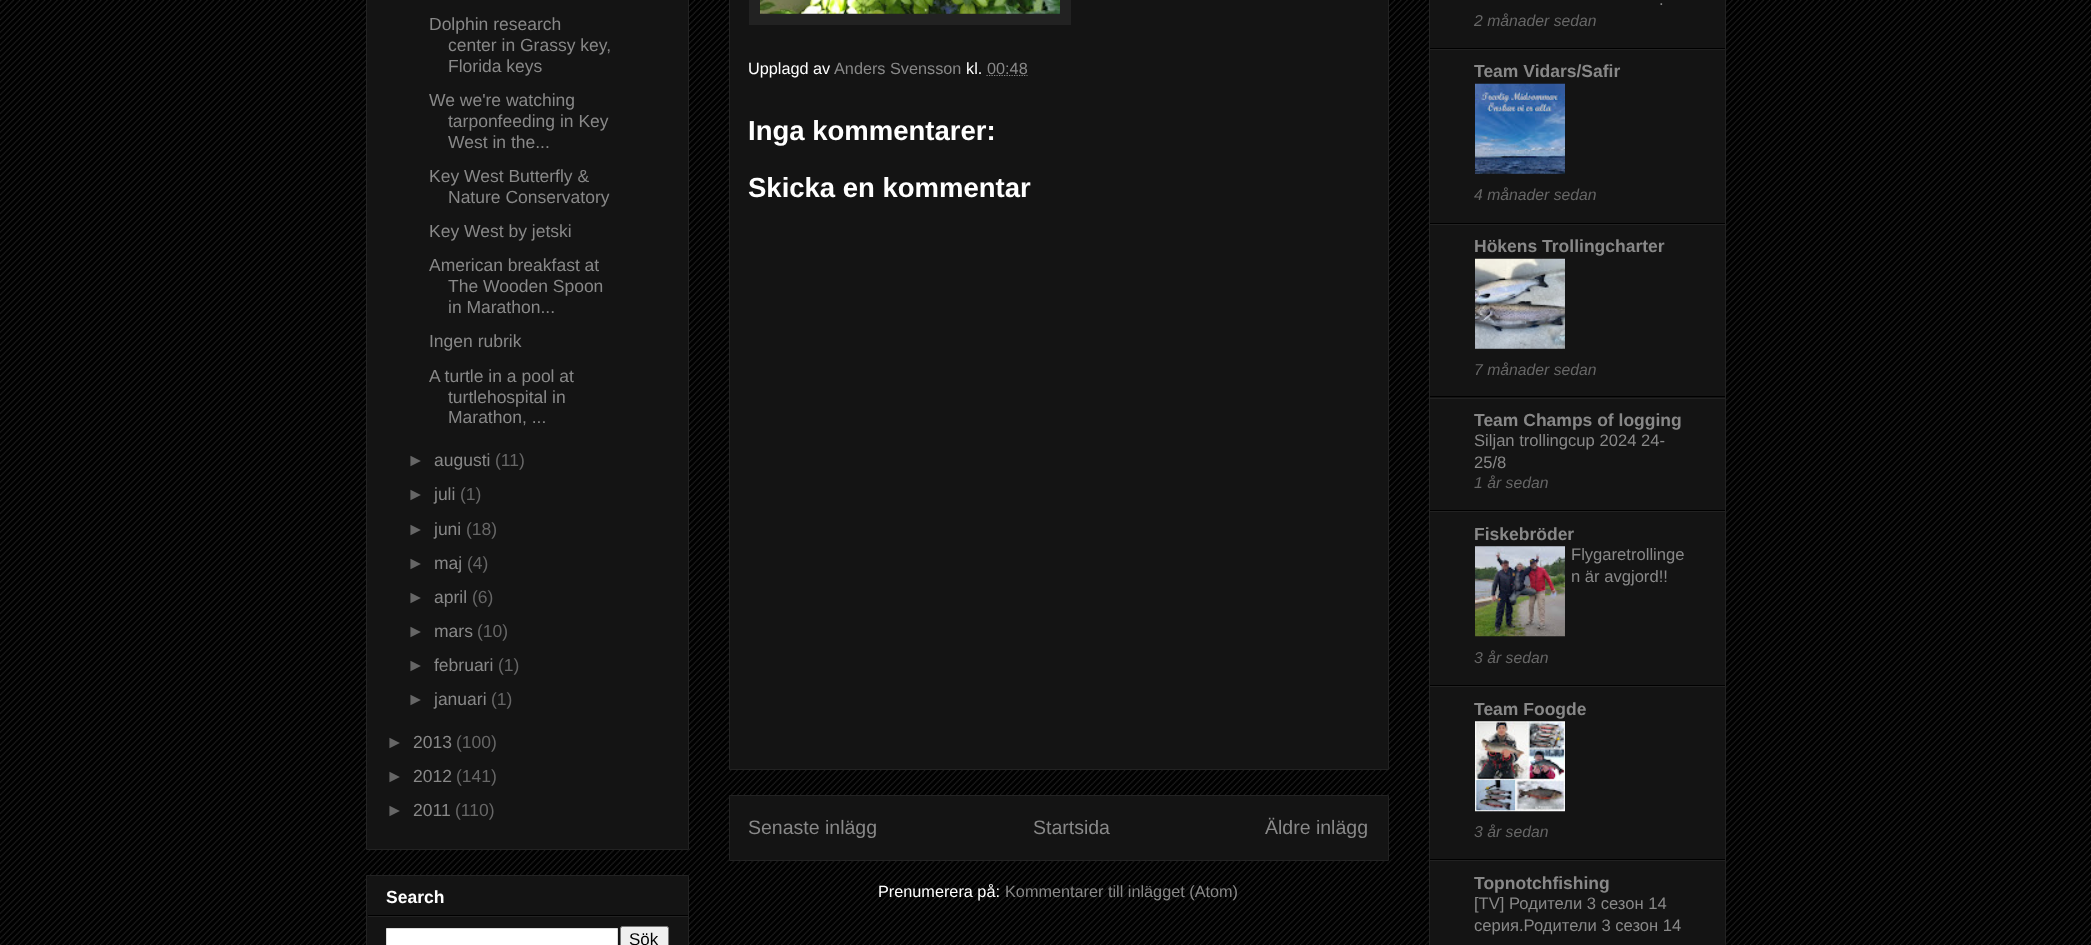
<svg xmlns="http://www.w3.org/2000/svg" width="2091" height="945" viewBox="0 0 2091 945">
  <rect width="100%" height="100%" fill="#000"/>
  <image x="0" y="0" width="2091" height="945" href="img/1.png"/>
  <path d="M366.5 -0.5h322v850H366.5z" fill="#141414" stroke="#222"/>
  <path d="M366.5 875.5h322v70H366.5z" fill="#141414" stroke="#222"/>
  <path d="M368 915h320v1H368z" fill="#000"/>
  <path d="M368 916h320v1H368z" fill="#222"/>
  <path d="M386.5 928.5h231v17H386.5z" fill="#fff" stroke="#ddd"/>
  <rect x="620.5" y="926.5" width="48" height="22" rx="2" fill="#efefef" stroke="#767676"/>
  <path d="M729.5 -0.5h659v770H729.5z" fill="#141414" stroke="#222"/>
  <path d="M749 0h322v25H749z" fill="#222"/>
  <image x="760" y="0" width="300" height="14" href="img/2.png"/>
  <path d="M986.5 75.5H1027.5" fill="none" stroke="#888" stroke-width="1.2" stroke-dasharray="1.25 1.25"/>
  <path d="M729.5 795.5h659v65H729.5z" fill="#141414" stroke="#222"/>
  <path d="M1429.5 -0.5h296v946H1429.5z" fill="#141414" stroke="#222"/>
  <path d="M1430 48h295v1H1430z" fill="#000"/>
  <path d="M1430 49h295v1H1430z" fill="#222"/>
  <path d="M1430 223h295v1H1430z" fill="#000"/>
  <image x="1475" y="83" width="90" height="91" href="img/3.png"/>
  <path d="M1430 224h295v1H1430z" fill="#222"/>
  <path d="M1430 396h295v1H1430z" fill="#000"/>
  <image x="1475" y="258" width="90" height="91" href="img/4.png"/>
  <path d="M1430 398h295v1H1430z" fill="#222"/>
  <path d="M1430 510h295v1H1430z" fill="#000"/>
  <path d="M1430 511h295v1H1430z" fill="#222"/>
  <path d="M1430 685h295v1H1430z" fill="#000"/>
  <image x="1475" y="546" width="90" height="91" href="img/5.png"/>
  <path d="M1430 686h295v1H1430z" fill="#222"/>
  <path d="M1430 859h295v1H1430z" fill="#000"/>
  <image x="1475" y="721" width="90" height="91" href="img/6.png"/>
  <path d="M1430 860h295v1H1430z" fill="#222"/>
  <g font-family="Liberation Sans" font-size="17.5" fill="#888">
    <text x="429" y="30">Dolphin research</text>
    <text x="448" y="51">center in Grassy key,</text>
    <text x="448" y="72">Florida keys</text>
    <text x="429" y="106">We we're watching</text>
    <text x="448" y="127">tarponfeeding in Key</text>
    <text x="448" y="148">West in the...</text>
    <text x="429" y="182">Key West Butterfly &amp;</text>
    <text x="448" y="203">Nature Conservatory</text>
    <text x="429" y="237">Key West by jetski</text>
    <text x="429" y="271">American breakfast at</text>
    <text x="448" y="292">The Wooden Spoon</text>
    <text x="448" y="313">in Marathon...</text>
    <text x="429" y="347">Ingen rubrik</text>
    <text x="429" y="382">A turtle in a pool at</text>
    <text x="448" y="403">turtlehospital in</text>
    <text x="448" y="423">Marathon, ...</text>
  </g>
  <text x="407" y="466" font-family="Liberation Sans" font-size="17.5" fill="#666">►</text>
  <text x="434" y="466" font-family="Liberation Sans" font-size="17.5" fill="#888">augusti</text>
  <g font-family="Liberation Sans" font-size="17.5" fill="#666">
    <text x="495" y="466">(11)</text>
    <text x="407" y="500">►</text>
  </g>
  <text x="434" y="500" font-family="Liberation Sans" font-size="17.5" fill="#888">juli</text>
  <g font-family="Liberation Sans" font-size="17.5" fill="#666">
    <text x="460" y="500">(1)</text>
    <text x="407" y="535">►</text>
  </g>
  <text x="434" y="535" font-family="Liberation Sans" font-size="17.5" fill="#888">juni</text>
  <g font-family="Liberation Sans" font-size="17.5" fill="#666">
    <text x="466" y="535">(18)</text>
    <text x="407" y="569">►</text>
  </g>
  <text x="434" y="569" font-family="Liberation Sans" font-size="17.5" fill="#888">maj</text>
  <g font-family="Liberation Sans" font-size="17.5" fill="#666">
    <text x="467" y="569">(4)</text>
    <text x="407" y="603">►</text>
  </g>
  <text x="434" y="603" font-family="Liberation Sans" font-size="17.5" fill="#888">april</text>
  <g font-family="Liberation Sans" font-size="17.5" fill="#666">
    <text x="472" y="603">(6)</text>
    <text x="407" y="637">►</text>
  </g>
  <text x="434" y="637" font-family="Liberation Sans" font-size="17.5" fill="#888">mars</text>
  <g font-family="Liberation Sans" font-size="17.5" fill="#666">
    <text x="477" y="637">(10)</text>
    <text x="407" y="671">►</text>
  </g>
  <text x="434" y="671" font-family="Liberation Sans" font-size="17.5" fill="#888">februari</text>
  <g font-family="Liberation Sans" font-size="17.5" fill="#666">
    <text x="498" y="671">(1)</text>
    <text x="407" y="705">►</text>
  </g>
  <text x="434" y="705" font-family="Liberation Sans" font-size="17.5" fill="#888">januari</text>
  <g font-family="Liberation Sans" font-size="17.5" fill="#666">
    <text x="491" y="705">(1)</text>
    <text x="386" y="748">►</text>
  </g>
  <text x="413" y="748" font-family="Liberation Sans" font-size="17.5" fill="#888">2013</text>
  <g font-family="Liberation Sans" font-size="17.5" fill="#666">
    <text x="456" y="748">(100)</text>
    <text x="386" y="782">►</text>
  </g>
  <text x="413" y="782" font-family="Liberation Sans" font-size="17.5" fill="#888">2012</text>
  <g font-family="Liberation Sans" font-size="17.5" fill="#666">
    <text x="456" y="782">(141)</text>
    <text x="386" y="816">►</text>
  </g>
  <text x="413" y="816" font-family="Liberation Sans" font-size="17.5" fill="#888">2011</text>
  <text x="455" y="816" font-family="Liberation Sans" font-size="17.5" fill="#666">(110)</text>
  <text x="386" y="903" font-family="Liberation Sans" font-size="17.5" font-weight="bold" fill="#fff">Search</text>
  <text x="629" y="945" font-family="Liberation Sans" font-size="17" fill="#000">Sök</text>
  <text x="748" y="74" font-family="Liberation Sans" font-size="16.25" fill="#fff">Upplagd av</text>
  <text x="834" y="74" font-family="Liberation Sans" font-size="16.25" fill="#888">Anders Svensson</text>
  <text x="966" y="74" font-family="Liberation Sans" font-size="16.25" fill="#fff">kl.</text>
  <text x="987" y="74" font-family="Liberation Sans" font-size="16.25" fill="#888">00:48</text>
  <g font-family="Liberation Sans" font-size="27.5" font-weight="bold" fill="#fff">
    <text x="748" y="140">Inga kommentarer:</text>
    <text x="748" y="197">Skicka en kommentar</text>
  </g>
  <g font-family="Liberation Sans" font-size="19.5" fill="#888">
    <text x="748" y="834">Senaste inlägg</text>
    <text x="1033" y="834">Startsida</text>
    <text x="1265" y="834">Äldre inlägg</text>
  </g>
  <text x="878" y="897" font-family="Liberation Sans" font-size="16.25" fill="#fff">Prenumerera på:</text>
  <text x="1005" y="897" font-family="Liberation Sans" font-size="16.25" fill="#888">Kommentarer till inlägget (Atom)</text>
  <text x="1659" y="5" font-family="Liberation Sans" font-size="16.6" fill="#888">.</text>
  <text x="1474" y="26" font-family="Liberation Sans" font-size="15.75" font-style="italic" fill="#666">2 månader sedan</text>
  <text x="1474" y="77" font-family="Liberation Sans" font-size="17.5" font-weight="bold" fill="#888">Team Vidars/Safir</text>
  <text x="1474" y="200" font-family="Liberation Sans" font-size="15.75" font-style="italic" fill="#666">4 månader sedan</text>
  <text x="1474" y="252" font-family="Liberation Sans" font-size="17.5" font-weight="bold" fill="#888">Hökens Trollingcharter</text>
  <text x="1474" y="375" font-family="Liberation Sans" font-size="15.75" font-style="italic" fill="#666">7 månader sedan</text>
  <text x="1474" y="426" font-family="Liberation Sans" font-size="17.5" font-weight="bold" fill="#888">Team Champs of logging</text>
  <g font-family="Liberation Sans" font-size="16.6" fill="#888">
    <text x="1474" y="446">Siljan trollingcup 2024 24-</text>
    <text x="1474" y="468">25/8</text>
  </g>
  <text x="1474" y="488" font-family="Liberation Sans" font-size="15.75" font-style="italic" fill="#666">1 år sedan</text>
  <text x="1474" y="540" font-family="Liberation Sans" font-size="17.5" font-weight="bold" fill="#888">Fiskebröder</text>
  <g font-family="Liberation Sans" font-size="16.6" fill="#888">
    <text x="1571" y="560">Flygaretrollinge</text>
    <text x="1571" y="582">n är avgjord!!</text>
  </g>
  <text x="1474" y="663" font-family="Liberation Sans" font-size="15.75" font-style="italic" fill="#666">3 år sedan</text>
  <text x="1474" y="715" font-family="Liberation Sans" font-size="17.5" font-weight="bold" fill="#888">Team Foogde</text>
  <text x="1474" y="837" font-family="Liberation Sans" font-size="15.75" font-style="italic" fill="#666">3 år sedan</text>
  <text x="1474" y="889" font-family="Liberation Sans" font-size="17.5" font-weight="bold" fill="#888">Topnotchfishing</text>
  <g font-family="Liberation Sans" font-size="16.6" fill="#888">
    <text x="1474" y="909">[TV] Родители 3 сезон 14</text>
    <text x="1474" y="931">серия.Родители 3 сезон 14</text>
  </g>
</svg>
